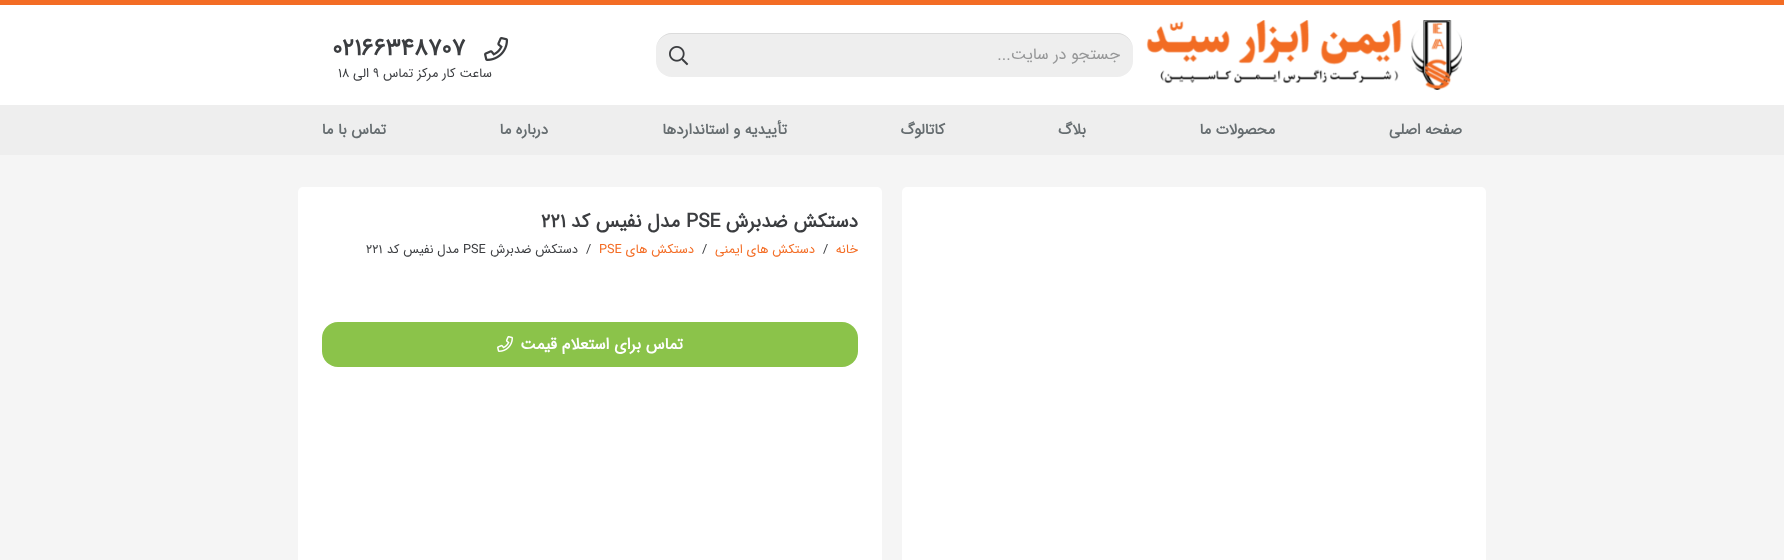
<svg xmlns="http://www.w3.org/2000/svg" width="1784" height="560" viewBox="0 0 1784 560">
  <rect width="100%" height="100%" fill="#f5f5f5"/>
  <path d="M0 0h1784v5H0z" fill="#f36c24"/>
  <path d="M0 5h1784v100H0z" fill="#fff"/>
  <image x="1146" y="20" width="316" height="70" href="img/1.png"/>
  <rect x="656" y="33" width="477" height="44" rx="16" fill="#eee"/>
  <path d="M672 34H1117C1126 34 1133 41 1133 50C1133 42 1128 35 1120 33H669C661 35 656 42 656 50C656 41 663 34 672 34Z" fill="#00000014"/>
  <image x="669" y="46" width="20" height="20" href="img/2.png"/>
  <image x="484" y="37" width="25" height="24" href="img/3.png"/>
  <path d="M0 105h1784v50H0z" fill="#eee"/>
  <rect x="902" y="187" width="584" height="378" rx="5" fill="#fff"/>
  <rect x="298" y="187" width="584" height="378" rx="5" fill="#fff"/>
  <rect x="322" y="322" width="536" height="45" rx="16" fill="#8bc34a"/>
  <image x="497" y="336" width="16" height="16" href="img/4.png"/>
  <text x="1120" y="59" font-family="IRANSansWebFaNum" font-size="16" direction="rtl" fill="#959697">جستجو در سایت...</text>
  <text x="332" y="55" font-family="IRANSansWebFaNum" font-size="24" font-weight="bold" fill="#3b3d40">02166348707</text>
  <text x="492" y="77" font-family="IRANSansWebFaNum" font-size="13" direction="rtl" fill="#3b3d40">ساعت کار مرکز تماس</text>
  <text x="373" y="77" font-family="IRANSansWebFaNum" font-size="13" fill="#3b3d40">9</text>
  <text x="369" y="77" font-family="IRANSansWebFaNum" font-size="13" direction="rtl" fill="#3b3d40">الی</text>
  <text x="338" y="77" font-family="IRANSansWebFaNum" font-size="13" fill="#3b3d40">18</text>
  <g font-family="IRANSansWebFaNum" font-size="15" font-weight="bold" direction="rtl" fill="#666d70">
    <text x="1462" y="134">صفحه اصلی</text>
    <text x="1275" y="134">محصولات ما</text>
    <text x="1086" y="134">بلاگ</text>
    <text x="945" y="134">کاتالوگ</text>
    <text x="787" y="134">تأییدیه و استانداردها</text>
    <text x="548" y="134">درباره ما</text>
    <text x="386" y="134">تماس با ما</text>
  </g>
  <text x="858" y="227" font-family="IRANSansWebFaNum" font-size="19.25" font-weight="bold" direction="rtl" fill="#3b3d40">دستکش ضدبرش</text>
  <text x="686" y="227" font-family="IRANSansWebFaNum" font-size="19.25" font-weight="bold" fill="#3b3d40">PSE</text>
  <text x="680" y="227" font-family="IRANSansWebFaNum" font-size="19.25" font-weight="bold" direction="rtl" fill="#3b3d40">مدل نفیس کد</text>
  <text x="541" y="227" font-family="IRANSansWebFaNum" font-size="19.25" font-weight="bold" fill="#3b3d40">221</text>
  <text x="858" y="253" font-family="IRANSansWebFaNum" font-size="12.75" direction="rtl" fill="#f36c24">خانه</text>
  <text x="823" y="253" font-family="IRANSansWebFaNum" font-size="12.75" fill="#3b3d40">/</text>
  <text x="815" y="253" font-family="IRANSansWebFaNum" font-size="12.75" direction="rtl" fill="#f36c24">دستکش های ایمنی</text>
  <text x="702" y="253" font-family="IRANSansWebFaNum" font-size="12.75" fill="#3b3d40">/</text>
  <text x="694" y="253" font-family="IRANSansWebFaNum" font-size="12.75" direction="rtl" fill="#f36c24">دستکش های</text>
  <text x="599" y="253" font-family="IRANSansWebFaNum" font-size="12.75" fill="#f36c24">PSE</text>
  <text x="586" y="253" font-family="IRANSansWebFaNum" font-size="12.75" fill="#3b3d40">/</text>
  <text x="578" y="253" font-family="IRANSansWebFaNum" font-size="12.75" direction="rtl" fill="#3b3d40">دستکش ضدبرش</text>
  <text x="463" y="253" font-family="IRANSansWebFaNum" font-size="12.75" fill="#3b3d40">PSE</text>
  <text x="459" y="253" font-family="IRANSansWebFaNum" font-size="12.75" direction="rtl" fill="#3b3d40">مدل نفیس کد</text>
  <text x="366" y="253" font-family="IRANSansWebFaNum" font-size="12.75" fill="#3b3d40">221</text>
  <text x="683" y="349" font-family="IRANSansWebFaNum" font-size="16" font-weight="bold" direction="rtl" fill="#fff">تماس برای استعلام قیمت</text>
</svg>
